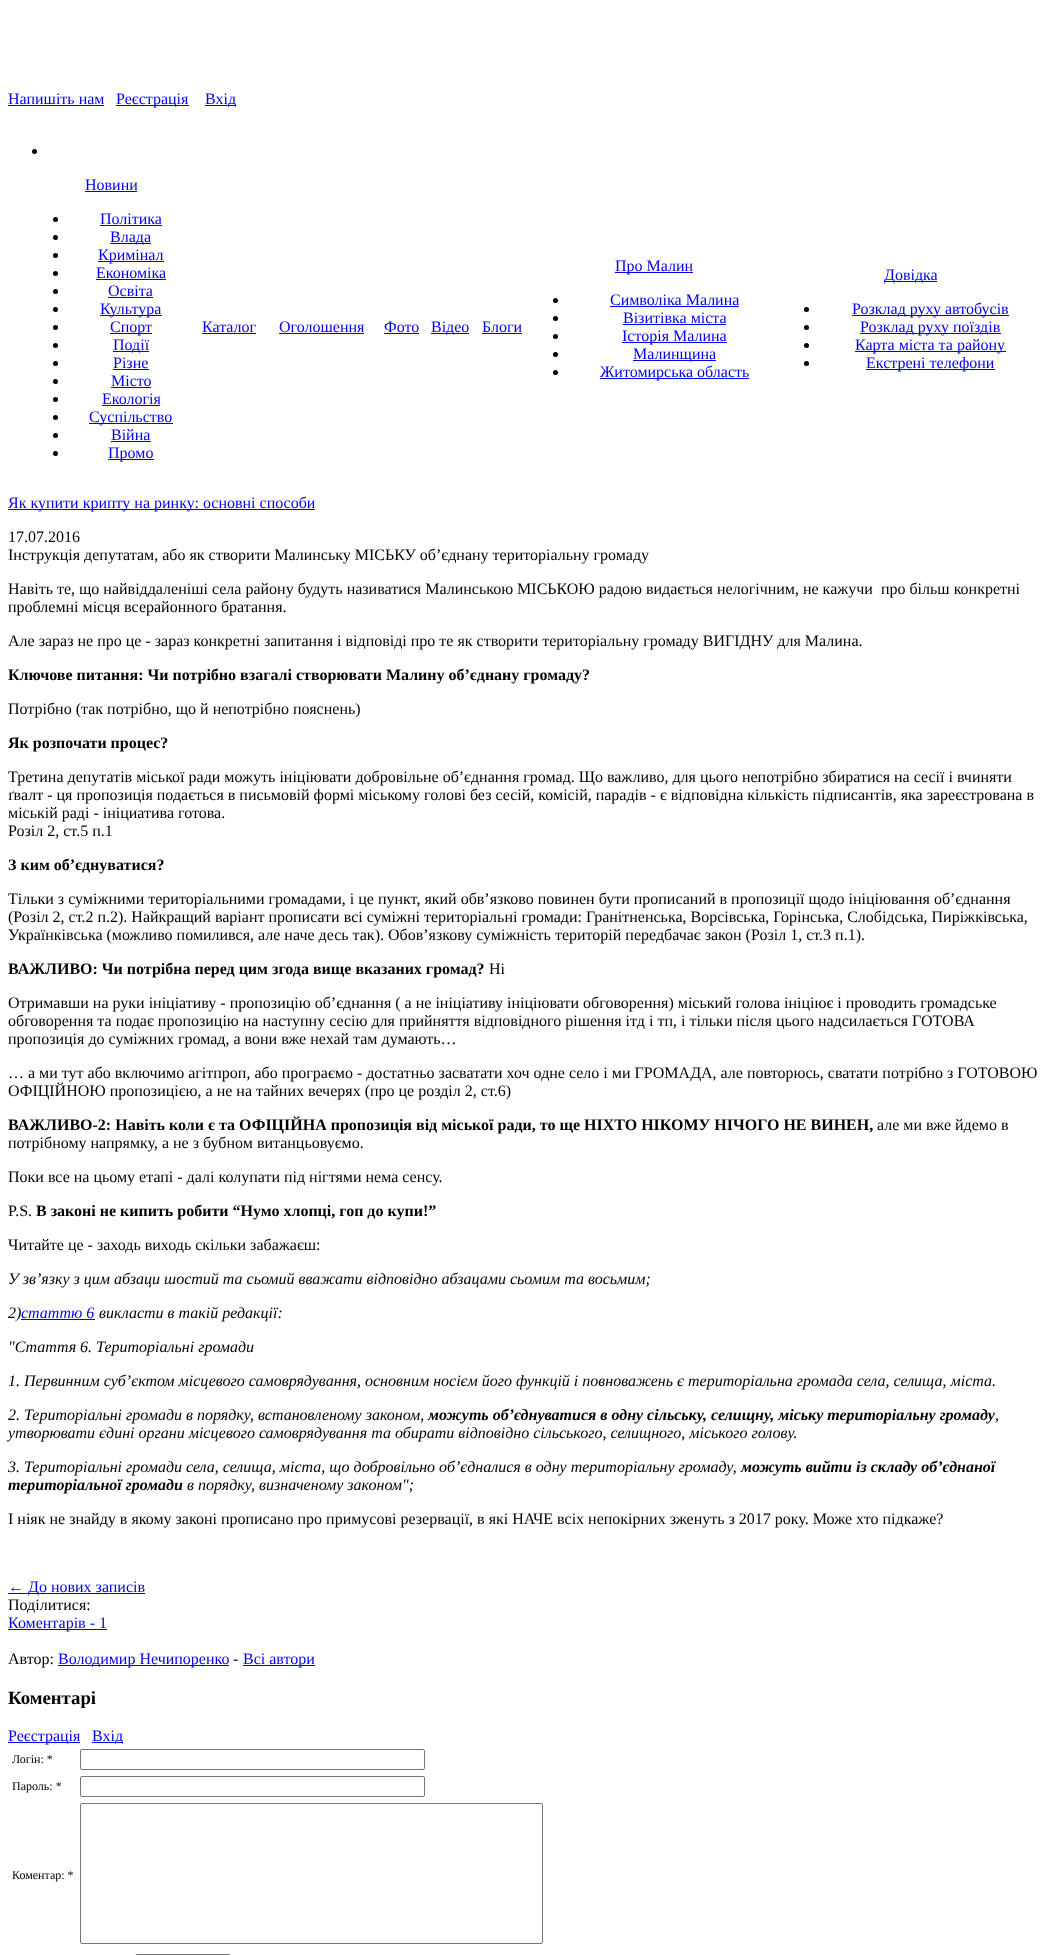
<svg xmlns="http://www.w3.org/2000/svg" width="1049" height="1955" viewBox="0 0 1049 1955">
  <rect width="100%" height="100%" fill="#fff"/>
  <path d="M8 105h96v1H8z" fill="#00e"/>
  <path d="M116 105h73v1H116z" fill="#00e"/>
  <path d="M205 105h31v1H205z" fill="#00e"/>
  <circle cx="34.5" cy="151.5" r="2.5" fill="#000"/>
  <path d="M85 191h52v1H85z" fill="#00e"/>
  <circle cx="55.5" cy="219.5" r="2.5" fill="#000"/>
  <path d="M100 225h62v1H100z" fill="#00e"/>
  <circle cx="55.5" cy="237.5" r="2.5" fill="#000"/>
  <path d="M110 243h41v1H110z" fill="#00e"/>
  <circle cx="55.5" cy="255.5" r="2.5" fill="#000"/>
  <path d="M98 261h66v1H98z" fill="#00e"/>
  <circle cx="55.5" cy="273.5" r="2.5" fill="#000"/>
  <path d="M96 279h70v1H96z" fill="#00e"/>
  <circle cx="55.5" cy="291.5" r="2.5" fill="#000"/>
  <path d="M108 297h45v1H108z" fill="#00e"/>
  <circle cx="55.5" cy="309.5" r="2.5" fill="#000"/>
  <path d="M100 315h62v1H100z" fill="#00e"/>
  <circle cx="55.5" cy="327.5" r="2.5" fill="#000"/>
  <path d="M110 333h42v1H110z" fill="#00e"/>
  <circle cx="55.5" cy="345.5" r="2.5" fill="#000"/>
  <path d="M113 351h36v1H113z" fill="#00e"/>
  <circle cx="55.5" cy="363.5" r="2.5" fill="#000"/>
  <path d="M113 369h36v1H113z" fill="#00e"/>
  <circle cx="55.5" cy="381.5" r="2.5" fill="#000"/>
  <path d="M111 387h40v1H111z" fill="#00e"/>
  <circle cx="55.5" cy="399.5" r="2.5" fill="#000"/>
  <path d="M102 405h58v1H102z" fill="#00e"/>
  <circle cx="55.5" cy="417.5" r="2.5" fill="#000"/>
  <path d="M89 423h84v1H89z" fill="#00e"/>
  <circle cx="55.5" cy="435.5" r="2.5" fill="#000"/>
  <path d="M111 441h40v1H111z" fill="#00e"/>
  <circle cx="55.5" cy="453.5" r="2.5" fill="#000"/>
  <path d="M108 459h46v1H108z" fill="#00e"/>
  <path d="M202 333h54v1H202z" fill="#00e"/>
  <path d="M279 333h85v1H279z" fill="#00e"/>
  <path d="M384 333h35v1H384z" fill="#00e"/>
  <path d="M431 333h38v1H431z" fill="#00e"/>
  <path d="M482 333h40v1H482z" fill="#00e"/>
  <path d="M615 272h78v1H615z" fill="#00e"/>
  <circle cx="555.5" cy="300.5" r="2.5" fill="#000"/>
  <path d="M610 306h129v1H610z" fill="#00e"/>
  <circle cx="555.5" cy="318.5" r="2.5" fill="#000"/>
  <path d="M623 324h103v1H623z" fill="#00e"/>
  <circle cx="555.5" cy="336.5" r="2.5" fill="#000"/>
  <path d="M622 342h105v1H622z" fill="#00e"/>
  <circle cx="555.5" cy="354.5" r="2.5" fill="#000"/>
  <path d="M633 360h83v1H633z" fill="#00e"/>
  <circle cx="555.5" cy="372.5" r="2.5" fill="#000"/>
  <path d="M600 378h149v1H600z" fill="#00e"/>
  <path d="M884 281h53v1H884z" fill="#00e"/>
  <circle cx="806.5" cy="309.5" r="2.5" fill="#000"/>
  <path d="M852 315h157v1H852z" fill="#00e"/>
  <circle cx="806.5" cy="327.5" r="2.5" fill="#000"/>
  <path d="M860 333h141v1H860z" fill="#00e"/>
  <circle cx="806.5" cy="345.5" r="2.5" fill="#000"/>
  <path d="M855 351h151v1H855z" fill="#00e"/>
  <circle cx="806.5" cy="363.5" r="2.5" fill="#000"/>
  <path d="M866 369h129v1H866z" fill="#00e"/>
  <path d="M8 509h307v1H8z" fill="#00e"/>
  <path d="M21 1319h74v1H21z" fill="#00e"/>
  <path d="M8 1593h137v1H8z" fill="#00e"/>
  <path d="M8 1629h99v1H8z" fill="#00e"/>
  <path d="M58 1665h171v1H58z" fill="#00e"/>
  <path d="M243 1665h72v1H243z" fill="#00e"/>
  <path d="M8 1742h72v1H8z" fill="#00e"/>
  <path d="M92 1742h31v1H92z" fill="#00e"/>
  <rect x="80.5" y="1749.5" width="344" height="20" rx="1.5" fill="none" stroke="#767676"/>
  <rect x="80.5" y="1776.5" width="344" height="20" rx="1.5" fill="none" stroke="#767676"/>
  <rect x="80.5" y="1803.5" width="462" height="140" rx="1.5" fill="none" stroke="#767676"/>
  <rect x="135.5" y="1954.5" width="95" height="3" rx="1.5" fill="none" stroke="#767676"/>
  <g font-family="Liberation Serif" font-size="16" fill="#00e">
    <text x="8" y="104">Напишіть нам</text>
    <text x="116" y="104">Реєстрація</text>
    <text x="205" y="104">Вхід</text>
    <text x="85" y="190">Новини</text>
    <text x="100" y="224">Політика</text>
    <text x="110" y="242">Влада</text>
    <text x="98" y="260">Кримінал</text>
    <text x="96" y="278">Економіка</text>
    <text x="108" y="296">Освіта</text>
    <text x="100" y="314">Культура</text>
    <text x="110" y="332">Спорт</text>
    <text x="113" y="350">Події</text>
    <text x="113" y="368">Різне</text>
    <text x="111" y="386">Місто</text>
    <text x="102" y="404">Екологія</text>
    <text x="89" y="422">Суспільство</text>
    <text x="111" y="440">Війна</text>
    <text x="108" y="458">Промо</text>
    <text x="202" y="332">Каталог</text>
    <text x="279" y="332">Оголошення</text>
    <text x="384" y="332">Фото</text>
    <text x="431" y="332">Відео</text>
    <text x="482" y="332">Блоги</text>
    <text x="615" y="271">Про Малин</text>
    <text x="610" y="305">Символіка Малина</text>
    <text x="623" y="323">Візитівка міста</text>
    <text x="622" y="341">Історія Малина</text>
    <text x="633" y="359">Малинщина</text>
    <text x="600" y="377">Житомирська область</text>
    <text x="884" y="280">Довідка</text>
    <text x="852" y="314">Розклад руху автобусів</text>
    <text x="860" y="332">Розклад руху поїздів</text>
    <text x="855" y="350">Карта міста та району</text>
    <text x="866" y="368">Екстрені телефони</text>
    <text x="8" y="508">Як купити крипту на ринку: основні способи</text>
  </g>
  <g font-family="Liberation Serif" font-size="16" fill="#000">
    <text x="8" y="542">17.07.2016</text>
    <text x="8" y="560">Інструкція депутатам, або як створити Малинську МІСЬКУ об’єднану територіальну громаду</text>
    <text x="8" y="594" xml:space="preserve">Навіть те, що найвіддаленіші села району будуть називатися Малинською МІСЬКОЮ радою видається нелогічним, не кажучи  про більш конкретні</text>
    <text x="8" y="612">проблемні місця всерайонного братання.</text>
    <text x="8" y="646">Але зараз не про це - зараз конкретні запитання і відповіді про те як створити територіальну громаду ВИГІДНУ для Малина.</text>
  </g>
  <text x="8" y="680" font-family="Liberation Serif" font-size="16" font-weight="bold" fill="#000">Ключове питання: Чи потрібно взагалі створювати Малину об’єднану громаду?</text>
  <text x="8" y="714" font-family="Liberation Serif" font-size="16" fill="#000">Потрібно (так потрібно, що й непотрібно пояснень)</text>
  <text x="8" y="748" font-family="Liberation Serif" font-size="16" font-weight="bold" fill="#000">Як розпочати процес?</text>
  <g font-family="Liberation Serif" font-size="16" fill="#000">
    <text x="8" y="782">Третина депутатів міської ради можуть ініціювати добровільне об’єднання громад. Що важливо, для цього непотрібно збиратися на сесії і вчиняти</text>
    <text x="8" y="800">ґвалт - ця пропозиція подається в письмовій формі міському голові без сесій, комісій, парадів - є відповідна кількість підписантів, яка зареєстрована в</text>
    <text x="8" y="818">міській раді - ініциатива готова.</text>
    <text x="8" y="836">Розіл 2, ст.5 п.1</text>
  </g>
  <text x="8" y="870" font-family="Liberation Serif" font-size="16" font-weight="bold" fill="#000">З ким об’єднуватися?</text>
  <g font-family="Liberation Serif" font-size="16" fill="#000">
    <text x="8" y="904">Тільки з суміжними територіальними громадами, і це пункт, який обв’язково повинен бути прописаний в пропозиції щодо ініціювання об’єднання</text>
    <text x="8" y="922">(Розіл 2, ст.2 п.2). Найкращий варіант прописати всі суміжні територіальні громади: Гранітненська, Ворсівська, Горінська, Слобідська, Пиріжківська,</text>
    <text x="8" y="940">Українківська (можливо помилився, але наче десь так). Обов’язкову суміжність територій передбачає закон (Розіл 1, ст.3 п.1).</text>
  </g>
  <text x="8" y="974" font-family="Liberation Serif" font-size="16" font-weight="bold" fill="#000">ВАЖЛИВО: Чи потрібна перед цим згода вище вказаних громад?</text>
  <g font-family="Liberation Serif" font-size="16" fill="#000">
    <text x="489" y="974">Ні</text>
    <text x="8" y="1008">Отримавши на руки ініціативу - пропозицію об’єднання ( а не ініціативу ініціювати обговорення) міський голова ініціює і проводить громадське</text>
    <text x="8" y="1026">обговорення та подає пропозицію на наступну сесію для прийняття відповідного рішення ітд і тп, і тільки після цього надсилається ГОТОВА</text>
    <text x="8" y="1044">пропозиція до суміжних громад, а вони вже нехай там думають…</text>
    <text x="8" y="1078">… а ми тут або включимо агітпроп, або програємо - достатньо засватати хоч одне село і ми ГРОМАДА, але повторюсь, сватати потрібно з ГОТОВОЮ</text>
    <text x="8" y="1096">ОФІЦІЙНОЮ пропозицією, а не на тайних вечерях (про це розділ 2, ст.6)</text>
  </g>
  <text x="8" y="1130" font-family="Liberation Serif" font-size="16" font-weight="bold" fill="#000">ВАЖЛИВО-2: Навіть коли є та ОФІЦІЙНА пропозиція від міської ради, то ще НІХТО НІКОМУ НІЧОГО НЕ ВИНЕН,</text>
  <g font-family="Liberation Serif" font-size="16" fill="#000">
    <text x="877" y="1130">але ми вже йдемо в</text>
    <text x="8" y="1148">потрібному напрямку, а не з бубном витанцьовуємо.</text>
    <text x="8" y="1182">Поки все на цьому етапі - далі колупати під нігтями нема сенсу.</text>
    <text x="8" y="1216">P.S.</text>
  </g>
  <text x="36" y="1216" font-family="Liberation Serif" font-size="16" font-weight="bold" fill="#000">В законі не кипить робити “Нумо хлопці, гоп до купи!”</text>
  <text x="8" y="1250" font-family="Liberation Serif" font-size="16" fill="#000">Читайте це - заходь виходь скільки забажаєш:</text>
  <g font-family="Liberation Serif" font-size="16" font-style="italic" fill="#000">
    <text x="8" y="1284">У зв’язку з цим абзаци шостий та сьомий вважати відповідно абзацами сьомим та восьмим;</text>
    <text x="8" y="1318">2)</text>
  </g>
  <text x="21" y="1318" font-family="Liberation Serif" font-size="16" font-style="italic" fill="#00e">статтю 6</text>
  <g font-family="Liberation Serif" font-size="16" font-style="italic" fill="#000">
    <text x="99" y="1318">викласти в такій редакції:</text>
    <text x="8" y="1352">"Стаття 6. Територіальні громади</text>
    <text x="8" y="1386">1. Первинним суб’єктом місцевого самоврядування, основним носієм його функцій і повноважень є територіальна громада села, селища, міста.</text>
    <text x="8" y="1420">2. Територіальні громади в порядку, встановленому законом,</text>
  </g>
  <text x="428" y="1420" font-family="Liberation Serif" font-size="16" font-weight="bold" font-style="italic" fill="#000">можуть об’єднуватися в одну сільську, селищну, міську територіальну громаду</text>
  <g font-family="Liberation Serif" font-size="16" font-style="italic" fill="#000">
    <text x="995" y="1420">,</text>
    <text x="8" y="1438">утворювати єдині органи місцевого самоврядування та обирати відповідно сільського, селищного, міського голову.</text>
    <text x="8" y="1472">3. Територіальні громади села, селища, міста, що добровільно об’єдналися в одну територіальну громаду,</text>
  </g>
  <g font-family="Liberation Serif" font-size="16" font-weight="bold" font-style="italic" fill="#000">
    <text x="741" y="1472">можуть вийти із складу об’єднаної</text>
    <text x="8" y="1490">територіальної громади</text>
  </g>
  <text x="187" y="1490" font-family="Liberation Serif" font-size="16" font-style="italic" fill="#000">в порядку, визначеному законом";</text>
  <text x="8" y="1524" font-family="Liberation Serif" font-size="16" fill="#000">І ніяк не знайду в якому законі прописано про примусові резервації, в які НАЧЕ всіх непокірних зженуть з 2017 року. Може хто підкаже?</text>
  <text x="8" y="1592" font-family="Liberation Serif" font-size="16" fill="#00e">← До нових записів</text>
  <text x="8" y="1610" font-family="Liberation Serif" font-size="16" fill="#000">Поділитися:</text>
  <text x="8" y="1628" font-family="Liberation Serif" font-size="16" fill="#00e">Коментарів - 1</text>
  <text x="8" y="1664" font-family="Liberation Serif" font-size="16" fill="#000">Автор:</text>
  <text x="58" y="1664" font-family="Liberation Serif" font-size="16" fill="#00e">Володимир Нечипоренко</text>
  <text x="233" y="1664" font-family="Liberation Serif" font-size="16" fill="#000">-</text>
  <text x="243" y="1664" font-family="Liberation Serif" font-size="16" fill="#00e">Всі автори</text>
  <text x="8" y="1704" font-family="Liberation Serif" font-size="18.75" font-weight="bold" fill="#000">Коментарі</text>
  <g font-family="Liberation Serif" font-size="16" fill="#00e">
    <text x="8" y="1741">Реєстрація</text>
    <text x="92" y="1741">Вхід</text>
  </g>
  <g font-family="Liberation Serif" font-size="12" fill="#000">
    <text x="12" y="1763">Логін: *</text>
    <text x="12" y="1790">Пароль: *</text>
    <text x="12" y="1879">Коментар: *</text>
  </g>
</svg>
